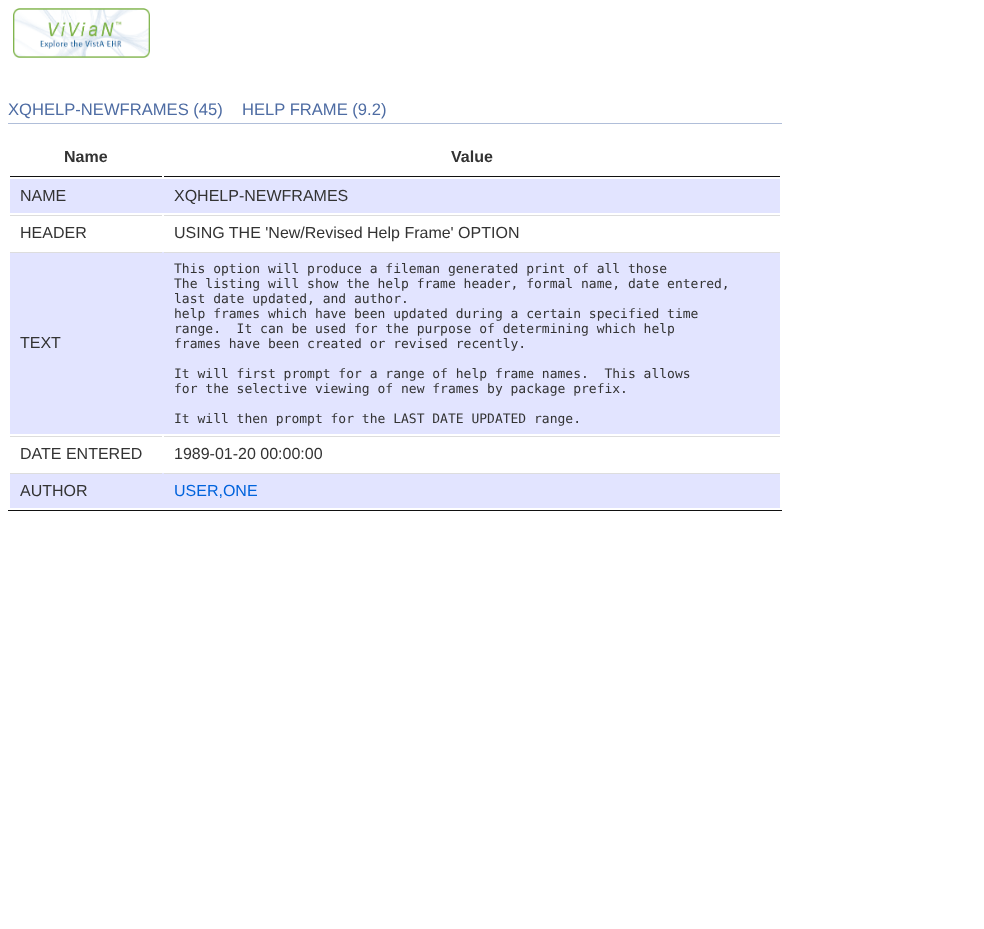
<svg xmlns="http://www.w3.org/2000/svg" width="984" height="929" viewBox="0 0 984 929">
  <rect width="100%" height="100%" fill="#fff"/>
  <image x="13" y="8" width="137" height="50" href="img/1.png"/>
  <path d="M8 123h774v1H8z" fill="#b0bed9"/>
  <path d="M8 510h774v1H8z" fill="#111"/>
  <path d="M10 176h152v1H10z" fill="#111"/>
  <path d="M164 176h616v1H164z" fill="#111"/>
  <path d="M10 179h770v34H10z" fill="#e2e4ff"/>
  <path d="M10 215h152v1H10z" fill="#ddd"/>
  <path d="M164 215h616v1H164z" fill="#ddd"/>
  <path d="M10 252h770v182H10z" fill="#e2e4ff"/>
  <path d="M10 252h152v1H10z" fill="#ddd"/>
  <path d="M164 252h616v1H164z" fill="#ddd"/>
  <path d="M10 436h152v1H10z" fill="#ddd"/>
  <path d="M164 436h616v1H164z" fill="#ddd"/>
  <path d="M10 473h770v35H10z" fill="#e2e4ff"/>
  <path d="M10 473h152v1H10z" fill="#ddd"/>
  <path d="M164 473h616v1H164z" fill="#ddd"/>
  <g font-family="Liberation Sans" font-size="16.6" fill="#4e6ca3">
    <text x="8" y="115">XQHELP-NEWFRAMES (45)</text>
    <text x="242" y="115">HELP FRAME (9.2)</text>
  </g>
  <g font-family="Liberation Sans" font-size="16" font-weight="bold" fill="#333">
    <text x="64" y="162">Name</text>
    <text x="451" y="162">Value</text>
  </g>
  <g font-family="Liberation Sans" font-size="16" fill="#333">
    <text x="20" y="201">NAME</text>
    <text x="174" y="201">XQHELP-NEWFRAMES</text>
    <text x="20" y="238">HEADER</text>
    <text x="174" y="238">USING THE 'New/Revised Help Frame' OPTION</text>
    <text x="20" y="348">TEXT</text>
  </g>
  <g font-family="DejaVu Sans Mono" font-size="13" fill="#333">
    <text x="174" y="273">This option will produce a fileman generated print of all those</text>
    <text x="174" y="288">The listing will show the help frame header, formal name, date entered,</text>
    <text x="174" y="303">last date updated, and author.</text>
    <text x="174" y="318">help frames which have been updated during a certain specified time</text>
    <text x="174" y="333" xml:space="preserve">range.  It can be used for the purpose of determining which help</text>
    <text x="174" y="348">frames have been created or revised recently.</text>
    <text x="174" y="378" xml:space="preserve">It will first prompt for a range of help frame names.  This allows</text>
    <text x="174" y="393">for the selective viewing of new frames by package prefix.</text>
    <text x="174" y="423">It will then prompt for the LAST DATE UPDATED range.</text>
  </g>
  <g font-family="Liberation Sans" font-size="16" fill="#333">
    <text x="20" y="459">DATE ENTERED</text>
    <text x="174" y="459">1989-01-20 00:00:00</text>
    <text x="20" y="496">AUTHOR</text>
  </g>
  <text x="174" y="496" font-family="Liberation Sans" font-size="16" fill="#0063dc">USER,ONE</text>
</svg>
